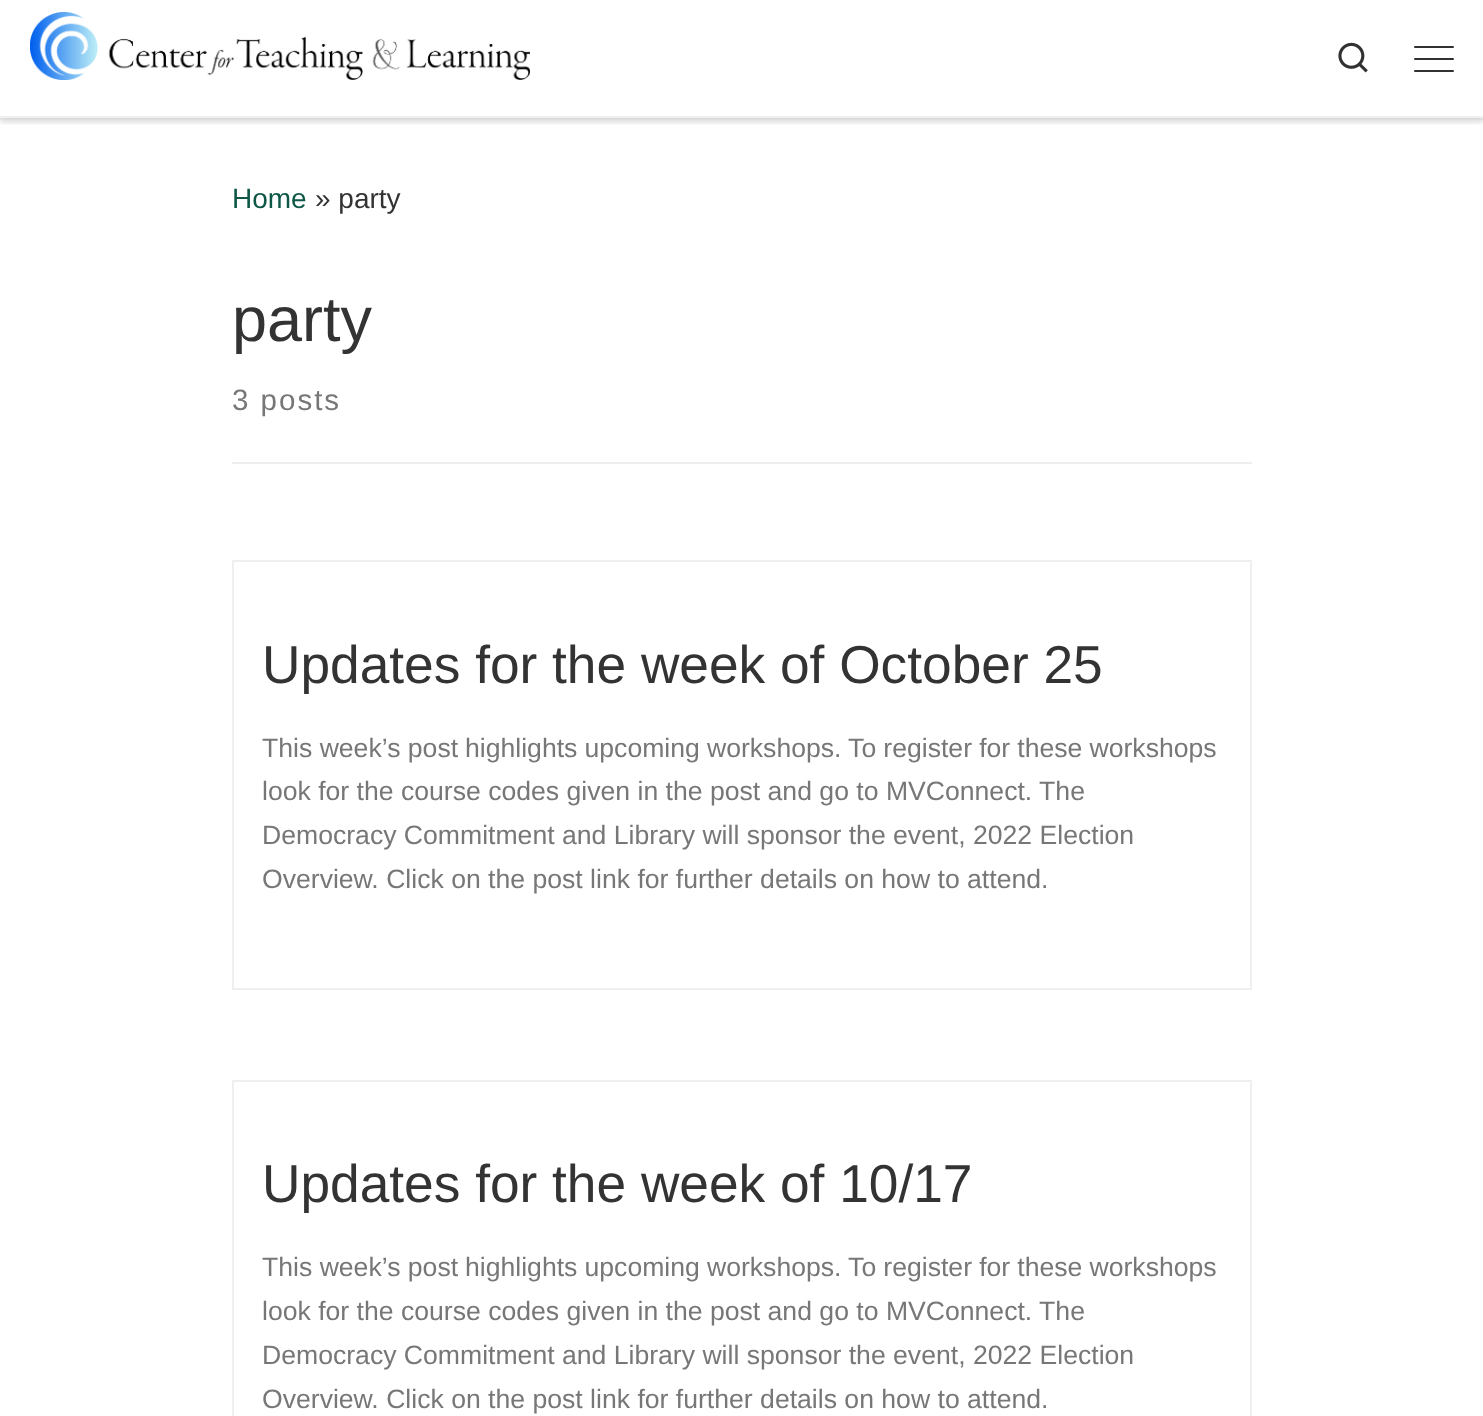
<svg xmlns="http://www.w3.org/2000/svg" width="1483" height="1416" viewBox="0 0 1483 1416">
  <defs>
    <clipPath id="clip1"><path d="M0 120h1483v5H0z"/></clipPath>
    <clipPath id="clip2"><path d="M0 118h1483v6H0z"/></clipPath>
  </defs>
  <rect width="100%" height="100%" fill="#fff"/>
  <g clip-path="url(#clip1)">
    <path d="M0 4h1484v120H0z" fill="#66666614" filter="blur(2px)"/>
  </g>
  <path d="M0 118h1483v2H0z" fill="#efefef"/>
  <g clip-path="url(#clip2)">
    <path d="M0 0h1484v118H0z" fill="#00000033" filter="blur(5px)"/>
  </g>
  <image x="30" y="12" width="500" height="68" href="img/1.png"/>
  <image x="1338" y="42" width="30" height="31" href="img/2.png"/>
  <rect x="1414" y="46" width="40" height="2" rx="1" fill="#313131"/>
  <rect x="1414" y="58" width="40" height="2" rx="1" fill="#313131"/>
  <rect x="1414" y="70" width="40" height="2" rx="1" fill="#313131"/>
  <path d="M0 116h1483v2H0z" fill="#f0f0f0"/>
  <path d="M232 462h1020v2H232z" fill="#eceeef"/>
  <path d="M233 561h1018v428H233z" fill="none" stroke="#efefef" stroke-width="2"/>
  <path d="M233 1081h1018v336H233z" fill="none" stroke="#efefef" stroke-width="2"/>
  <text x="232" y="208" font-family="Liberation Sans" font-size="28" fill="#0d5746">Home</text>
  <text x="315" y="208" font-family="Liberation Sans" font-size="28" fill="#333">» party</text>
  <text x="232" y="341" font-family="Liberation Sans" font-size="63" fill="#333">party</text>
  <text x="232" y="410" font-family="Liberation Sans" font-size="29.5" letter-spacing="2" fill="#777">3 posts</text>
  <text x="262" y="683" font-family="Liberation Sans" font-size="53.25" fill="#333">Updates for the week of October 25</text>
  <g font-family="Liberation Sans" font-size="26.6" fill="#777">
    <text x="262" y="757">This week’s post</text>
    <text x="465" y="757" word-spacing="-0.25">highlights upcoming workshops. To register for these workshops</text>
    <text x="262" y="800">look for the course codes given in the post and go to MVConnect. The</text>
    <text x="262" y="844">Democracy Commitment and Library will sponsor the event,</text>
    <text x="973" y="844">2022 Election</text>
    <text x="262" y="888">Overview. Click on the post link for further details on how to attend.</text>
  </g>
  <text x="262" y="1202" font-family="Liberation Sans" font-size="53.25" fill="#333">Updates for the week of 10/17</text>
  <g font-family="Liberation Sans" font-size="26.6" fill="#777">
    <text x="262" y="1276">This week’s post</text>
    <text x="465" y="1276" word-spacing="-0.25">highlights upcoming workshops. To register for these workshops</text>
    <text x="262" y="1320">look for the course codes given in the post and go to MVConnect. The</text>
    <text x="262" y="1364">Democracy Commitment and Library will sponsor the event,</text>
    <text x="973" y="1364">2022 Election</text>
    <text x="262" y="1408">Overview. Click on the post link for further details on how to attend.</text>
  </g>
</svg>
